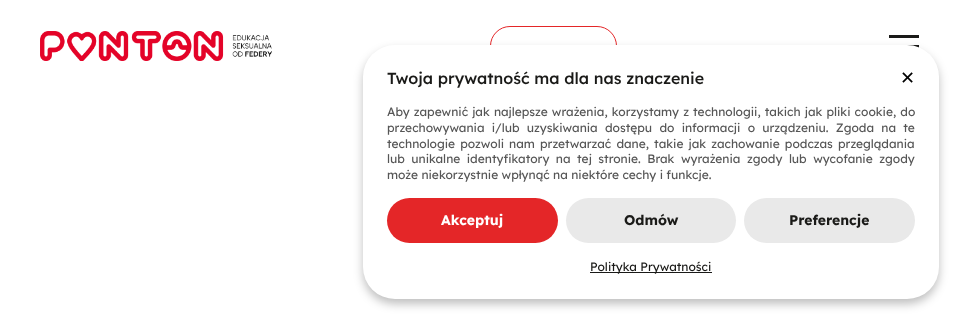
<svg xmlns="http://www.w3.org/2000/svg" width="959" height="319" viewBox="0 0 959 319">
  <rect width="100%" height="100%" fill="#fff"/>
  <image x="40" y="31" width="232" height="30" href="img/1.png"/>
  <rect x="490.5" y="26.5" width="126" height="39" rx="19.5" fill="none" stroke="#e42628"/>
  <path d="M889 35h30v3H889z" fill="#1a1a18"/>
  <path d="M907 45h12v3H907z" fill="#1a1a18"/>
  <rect x="363" y="50" width="576" height="254" rx="32" fill="#00000040" filter="blur(5px)"/>
  <rect x="363" y="45" width="576" height="254" rx="32" fill="#fff"/>
  <rect x="387" y="198" width="171" height="45" rx="22.5" fill="#e42628"/>
  <rect x="566" y="198" width="170" height="45" rx="22.5" fill="#e9e9e9"/>
  <rect x="744" y="198" width="171" height="45" rx="22.5" fill="#e9e9e9"/>
  <path d="M590 272h122v1H590z" fill="#1a1a18"/>
  <text x="387" y="84" font-family="Lexend" font-size="16" font-weight="500" fill="#1a1a18">Twoja prywatność ma dla nas znaczenie</text>
  <text x="900" y="84" font-family="DejaVu Sans" font-size="18" fill="#000">✕</text>
  <g font-family="Lexend" font-size="12" fill="#565656">
    <text x="387" y="116" word-spacing="0.75">Aby zapewnić jak najlepsze wrażenia, korzystamy z technologii, takich jak pliki cookie, do</text>
    <text x="387" y="132" word-spacing="3.9">przechowywania i/lub uzyskiwania dostępu do informacji o urządzeniu. Zgoda na te</text>
    <text x="387" y="148" word-spacing="1.75">technologie pozwoli nam przetwarzać dane, takie jak zachowanie podczas przeglądania</text>
    <text x="387" y="163" word-spacing="3.1">lub unikalne identyfikatory na tej stronie. Brak wyrażenia zgody lub wycofanie zgody</text>
    <text x="387" y="179">może niekorzystnie wpłynąć na niektóre cechy i funkcje.</text>
  </g>
  <text x="441" y="225" font-family="Lexend" font-size="14" font-weight="bold" fill="#fff">Akceptuj</text>
  <g font-family="Lexend" font-size="14" font-weight="bold" fill="#1a1a18">
    <text x="624" y="225">Odmów</text>
    <text x="789" y="225">Preferencje</text>
  </g>
  <text x="590" y="271" font-family="Lexend" font-size="12" fill="#1a1a18">Polityka Prywatności</text>
</svg>
